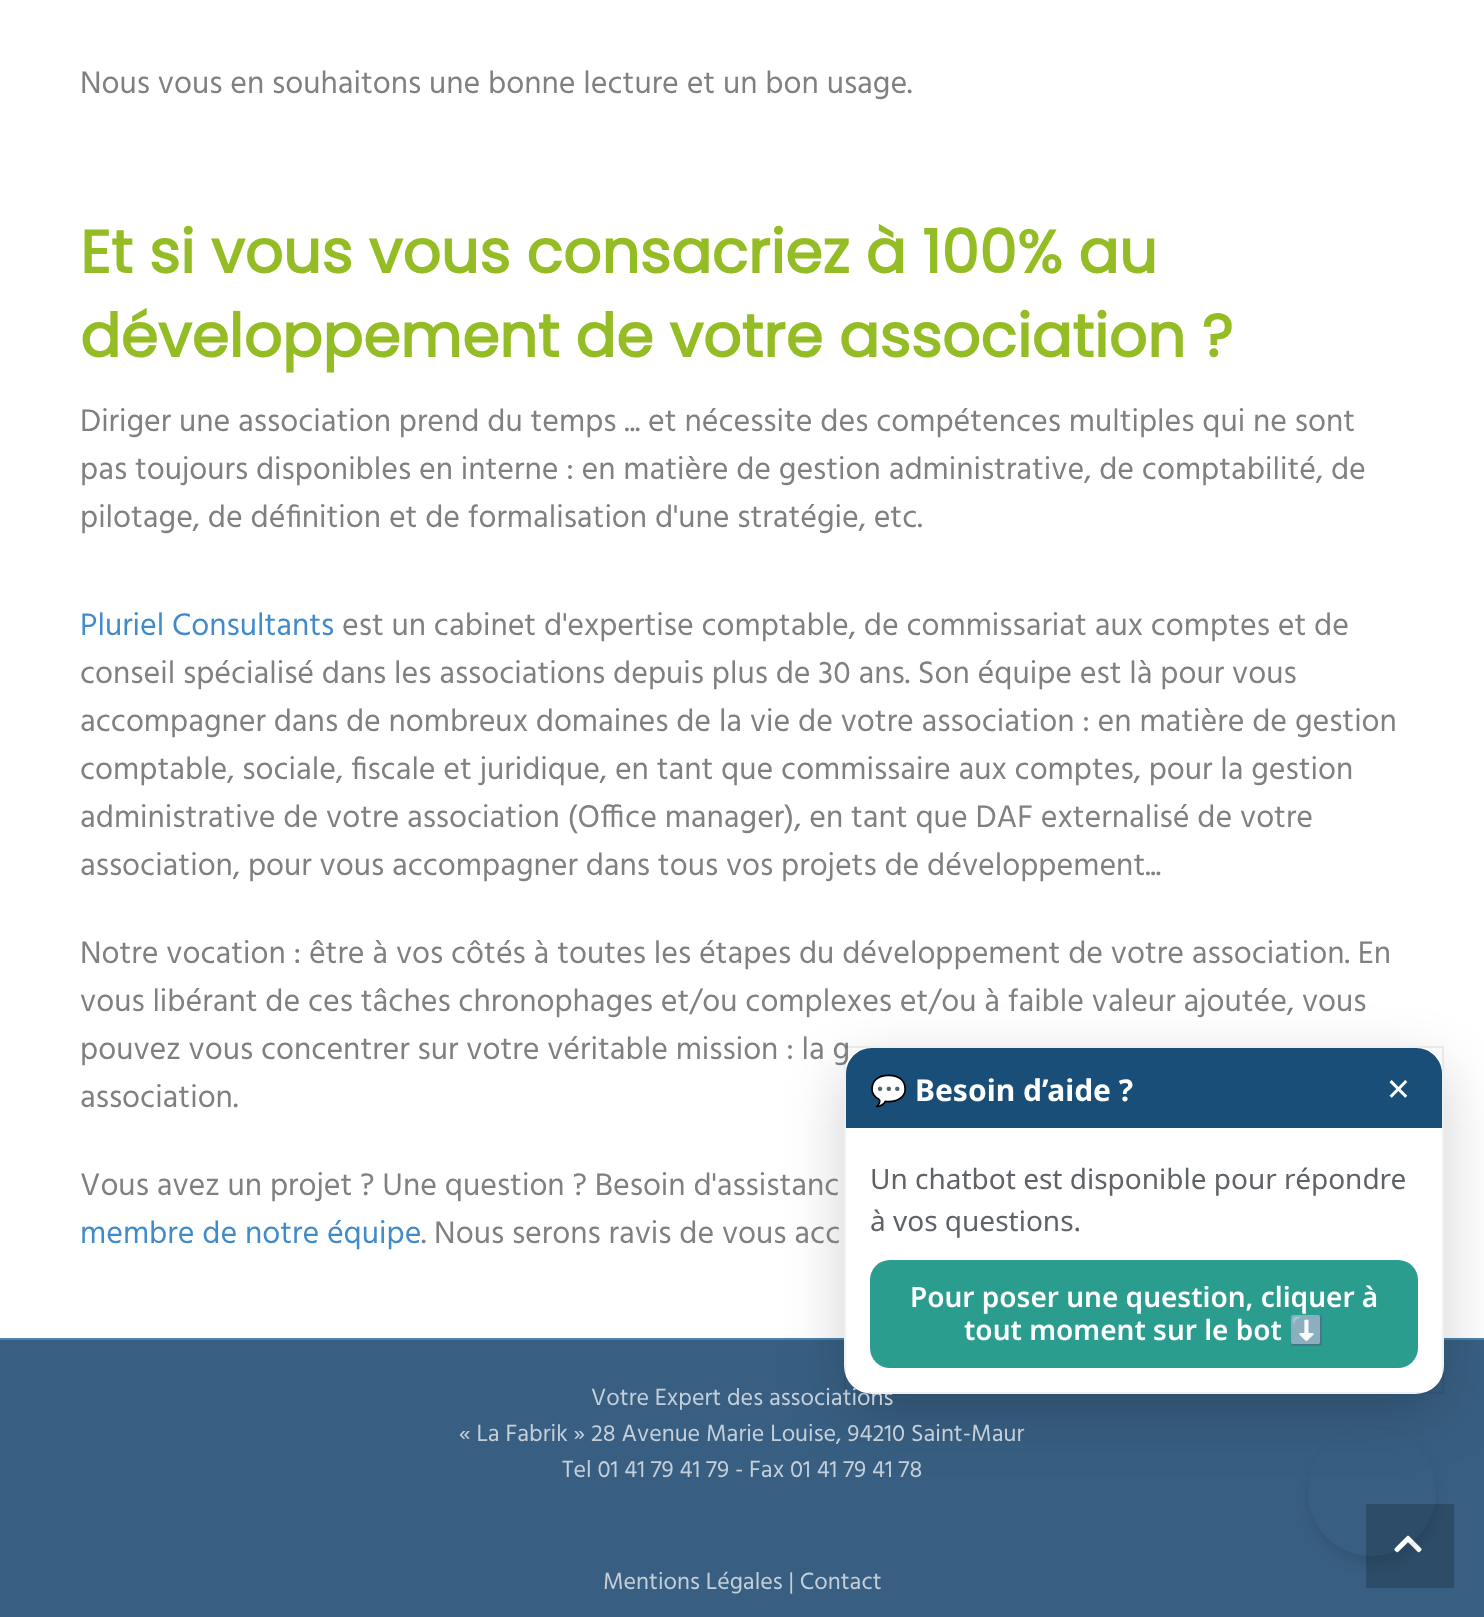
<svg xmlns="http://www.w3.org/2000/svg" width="1484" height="1617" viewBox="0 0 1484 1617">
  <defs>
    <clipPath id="clip1"><path d="M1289 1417H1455V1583H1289ZM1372 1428C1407.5 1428 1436 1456.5 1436 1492C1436 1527.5 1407.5 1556 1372 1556C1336.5 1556 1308 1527.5 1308 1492C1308 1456.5 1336.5 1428 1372 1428Z" clip-rule="evenodd"/></clipPath>
  </defs>
  <rect width="100%" height="100%" fill="#fff"/>
  <path d="M0 1340h1484v277H0z" fill="#385f82"/>
  <path d="M0 1338h1484v2H0z" fill="#4c81b0"/>
  <path d="M1366 1504h88v84H1366z" fill="#2d4c68"/>
  <rect x="844" y="1066" width="600" height="348" rx="28" fill="#0000002e" filter="blur(30px)"/>
  <image x="1394" y="1535" width="28" height="18" href="img/1.png"/>
  <g clip-path="url(#clip1)">
    <rect x="1308" y="1436" width="128" height="128" rx="64" fill="#0000001a" filter="blur(6px)"/>
  </g>
  <text x="80" y="93" font-family="Hind" font-size="32" fill="#808080">Nous vous en souhaitons une bonne lecture et un bon usage.</text>
  <g font-family="Poppins" font-size="60" font-weight="bold" fill="#94bd25">
    <text x="80" y="273">Et si vous vous consacriez à 100% au</text>
    <text x="80" y="357">développement de votre association ?</text>
  </g>
  <g font-family="Hind" font-size="32" fill="#808080">
    <text x="80" y="431">Diriger une association prend du temps ... et nécessite des compétences multiples qui ne sont</text>
    <text x="80" y="479">pas toujours disponibles en interne : en matière de gestion administrative, de comptabilité, de</text>
    <text x="80" y="527">pilotage, de définition et de formalisation d'une stratégie, etc.</text>
  </g>
  <text x="80" y="635" font-family="Hind" font-size="32" fill="#428bca">Pluriel Consultants</text>
  <g font-family="Hind" font-size="32" fill="#808080">
    <text x="342" y="635">est un cabinet d'expertise comptable, de commissariat aux comptes et de</text>
    <text x="80" y="683">conseil spécialisé dans les associations depuis plus de 30 ans. Son équipe est là pour vous</text>
    <text x="80" y="731">accompagner dans de nombreux domaines de la vie de votre association : en matière de gestion</text>
    <text x="80" y="779">comptable, sociale, fiscale et juridique, en tant que commissaire aux comptes, pour la gestion</text>
    <text x="80" y="827">administrative de votre association (Office manager), en tant que DAF externalisé de votre</text>
    <text x="80" y="875">association, pour vous accompagner dans tous vos projets de développement...</text>
    <text x="80" y="963">Notre vocation : être à vos côtés à toutes les étapes du développement de votre association. En</text>
    <text x="80" y="1011">vous libérant de ces tâches chronophages et/ou complexes et/ou à faible valeur ajoutée, vous</text>
    <text x="80" y="1059">pouvez vous concentrer sur votre véritable mission : la g</text>
    <text x="80" y="1107">association.</text>
    <text x="80" y="1195">Vous avez un projet ? Une question ? Besoin d'assistanc</text>
  </g>
  <text x="80" y="1243" font-family="Hind" font-size="32" fill="#428bca">membre de notre équipe</text>
  <text x="421" y="1243" font-family="Hind" font-size="32" fill="#808080">. Nous serons ravis de vous acc</text>
  <g font-family="Hind" font-size="24" fill="#c4cfda">
    <text x="591" y="1405">Votre Expert des associations</text>
    <text x="459" y="1441">« La Fabrik » 28 Avenue Marie Louise, 94210 Saint-Maur</text>
    <text x="562" y="1477">Tel 01 41 79 41 79 - Fax 01 41 79 41 78</text>
    <text x="603" y="1589">Mentions Légales | Contact</text>
  </g>
  <rect x="844" y="1046" width="600" height="348" rx="28" fill="#fff"/>
  <path d="M845 1047h598v346H845z" fill="none" stroke="#0000000f" stroke-width="2"/>
  <path d="M872 1048H1416C1430.5 1048 1442 1059.5 1442 1074V1128H846V1074C846 1059.5 857.5 1048 872 1048Z" fill="#184e77"/>
  <text x="870" y="1101" font-family="Noto Color Emoji" font-size="30" font-weight="bold" fill="#fff">💬</text>
  <text x="915" y="1101" font-family="Noto Sans" font-size="30" font-weight="bold" fill="#fff">Besoin d’aide ?</text>
  <text x="1387" y="1103" font-family="Noto Sans" font-size="40" fill="#fff">×</text>
  <g font-family="Noto Sans" font-size="28" fill="#5f6368">
    <text x="870" y="1189">Un chatbot est disponible pour répondre</text>
    <text x="870" y="1231">à vos questions.</text>
  </g>
  <rect x="870" y="1260" width="548" height="108" rx="20" fill="#2a9d8f"/>
  <g font-family="Noto Sans" font-size="28" font-weight="600" fill="#fff">
    <text x="910" y="1307">Pour poser une question, cliquer à</text>
    <text x="964" y="1340">tout moment sur le bot</text>
  </g>
  <text x="1289" y="1340" font-family="Noto Color Emoji" font-size="28" font-weight="bold" fill="#fff">⬇️</text>
</svg>
